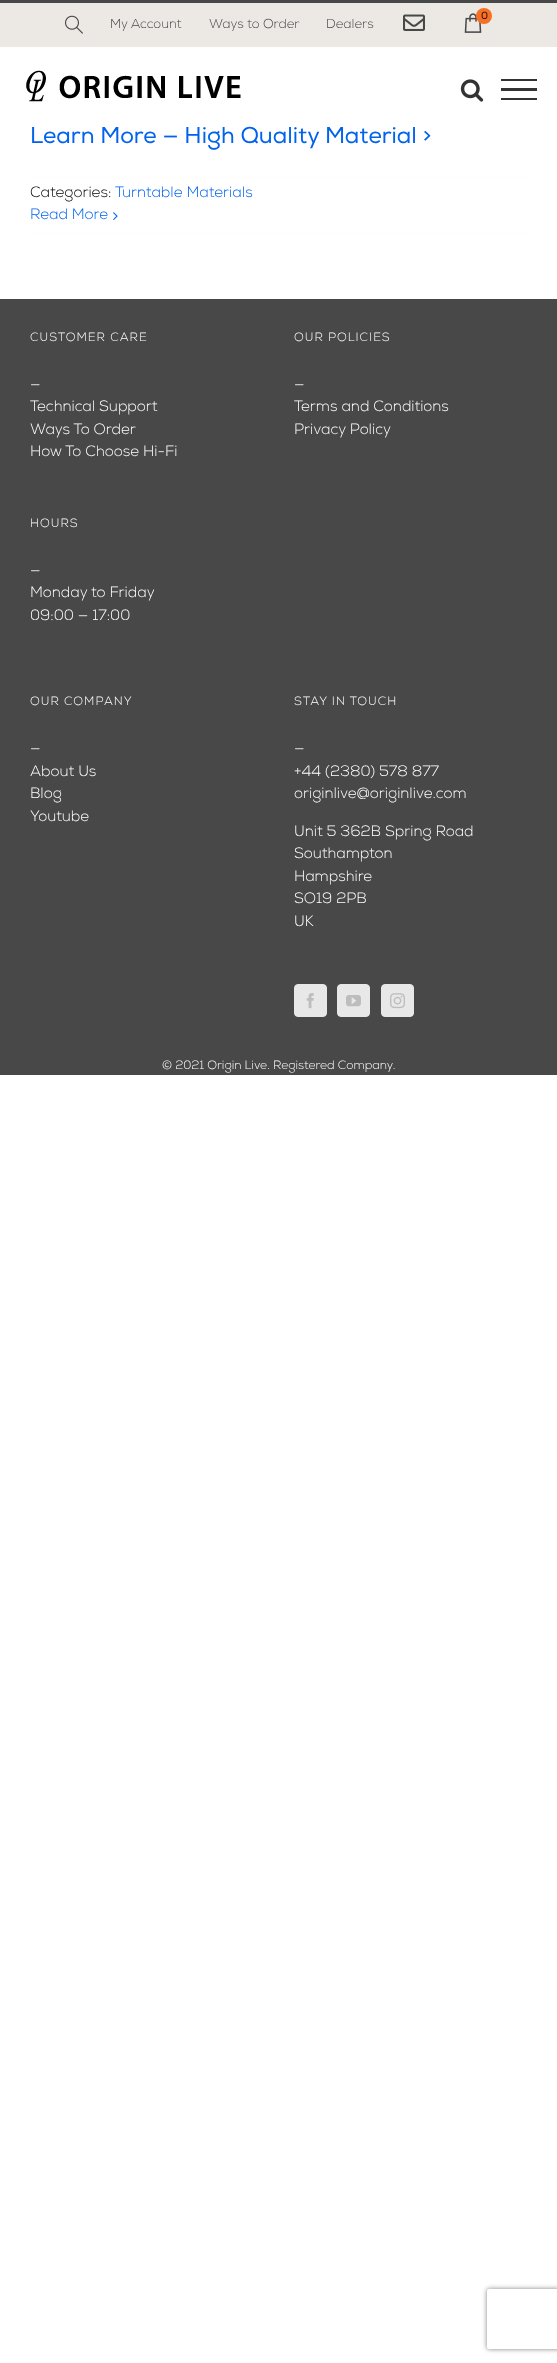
<svg xmlns="http://www.w3.org/2000/svg" width="557" height="2363" viewBox="0 0 557 2363">
  <defs>
    <clipPath id="clip1"><path d="M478 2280H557V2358H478ZM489 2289H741C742 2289 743 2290 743 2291V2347C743 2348 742 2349 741 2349H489C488 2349 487 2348 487 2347V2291C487 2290 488 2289 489 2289Z" clip-rule="evenodd"/></clipPath>
  </defs>
  <rect width="100%" height="100%" fill="#fff"/>
  <path d="M0 3h557v44H0z" fill="#ece8e4"/>
  <path d="M0 0h557v3H0z" fill="#484848"/>
  <image x="65" y="15" width="18" height="19" href="img/1.png"/>
  <image x="403" y="14" width="22" height="17" href="img/2.png"/>
  <image x="464" y="13" width="18" height="20" href="img/3.png"/>
  <circle cx="484" cy="16" r="8" fill="#f76e25"/>
  <image x="26" y="70" width="215" height="32" href="img/4.png"/>
  <image x="460" y="79" width="24" height="23" href="img/5.png"/>
  <path d="M501 79h36v2H501z" fill="#333"/>
  <path d="M501 88h36v3H501z" fill="#333"/>
  <path d="M501 98h36v2H501z" fill="#333"/>
  <path d="M30 177h497v1H30z" fill="#fffcfc"/>
  <path d="M30 233h497v1H30z" fill="#fffcfc"/>
  <image x="113" y="212" width="5" height="8" href="img/6.png"/>
  <path d="M0 299h557v776H0z" fill="#484848"/>
  <rect x="294.5" y="984.5" width="32" height="32" rx="3.5" fill="#e8e8e8" stroke="#e8e8e8"/>
  <image x="306" y="993" width="8" height="16" href="img/7.png"/>
  <rect x="337.5" y="984.5" width="32" height="32" rx="3.5" fill="#e8e8e8" stroke="#e8e8e8"/>
  <image x="346" y="995" width="15" height="12" href="img/8.png"/>
  <rect x="381.5" y="984.5" width="32" height="32" rx="3.5" fill="#e8e8e8" stroke="#e8e8e8"/>
  <image x="390" y="993" width="15" height="16" href="img/9.png"/>
  <g clip-path="url(#clip1)">
    <rect x="487" y="2289" width="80" height="60" rx="2" fill="#808080" filter="blur(2.5px)"/>
  </g>
  <g font-family="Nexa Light" font-size="13" font-weight="300" fill="#484848">
    <text x="110" y="28">My Account</text>
    <text x="209" y="28">Ways to Order</text>
    <text x="326" y="28">Dealers</text>
  </g>
  <text x="481" y="19" font-family="Nexa Light" font-size="10" font-weight="bold" fill="#000">0</text>
  <text x="30" y="143" font-family="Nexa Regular" font-size="22.8" fill="#0062ed">Learn More — High Quality Material &gt;</text>
  <text x="30" y="197" font-family="Nexa Light" font-size="15" font-weight="300" fill="#000">Categories:</text>
  <g font-family="Nexa Light" font-size="15" font-weight="300" fill="#0062ed">
    <text x="115" y="197">Turntable Materials</text>
    <text x="30" y="219">Read More</text>
  </g>
  <text x="30" y="341" font-family="Nexa Light" font-size="12" font-weight="300" letter-spacing="1" fill="#fff">CUSTOMER CARE</text>
  <g font-family="Nexa Light" font-size="15" font-weight="300" fill="#fff">
    <text x="30" y="389">—</text>
    <text x="30" y="411">Technical Support</text>
    <text x="30" y="434">Ways To Order</text>
    <text x="30" y="456">How To Choose Hi-Fi</text>
  </g>
  <text x="30" y="527" font-family="Nexa Light" font-size="12" font-weight="300" letter-spacing="1" fill="#fff">HOURS</text>
  <g font-family="Nexa Light" font-size="15" font-weight="300" fill="#fff">
    <text x="30" y="575">—</text>
    <text x="30" y="597">Monday to Friday</text>
    <text x="30" y="620">09:00 — 17:00</text>
  </g>
  <text x="294" y="341" font-family="Nexa Light" font-size="12" font-weight="300" letter-spacing="1" fill="#fff">OUR POLICIES</text>
  <g font-family="Nexa Light" font-size="15" font-weight="300" fill="#fff">
    <text x="294" y="389">—</text>
    <text x="294" y="411">Terms and Conditions</text>
    <text x="294" y="434">Privacy Policy</text>
  </g>
  <text x="30" y="705" font-family="Nexa Light" font-size="12" font-weight="300" letter-spacing="1" fill="#fff">OUR COMPANY</text>
  <g font-family="Nexa Light" font-size="15" font-weight="300" fill="#fff">
    <text x="30" y="753">—</text>
    <text x="30" y="776">About Us</text>
    <text x="30" y="798">Blog</text>
    <text x="30" y="821">Youtube</text>
  </g>
  <text x="294" y="705" font-family="Nexa Light" font-size="12" font-weight="300" letter-spacing="1" fill="#fff">STAY IN TOUCH</text>
  <g font-family="Nexa Light" font-size="15" font-weight="300" fill="#fff">
    <text x="294" y="753">—</text>
    <text x="294" y="776">+44 (2380) 578 877</text>
    <text x="294" y="798">originlive@originlive.com</text>
    <text x="294" y="836">Unit 5 362B Spring Road</text>
    <text x="294" y="858">Southampton</text>
    <text x="294" y="881">Hampshire</text>
    <text x="294" y="903">SO19 2PB</text>
    <text x="294" y="926">UK</text>
  </g>
  <text x="162" y="1069" font-family="Nexa Light" font-size="12" font-weight="300" fill="#fff">© 2021 Origin Live. Registered Company.</text>
</svg>
